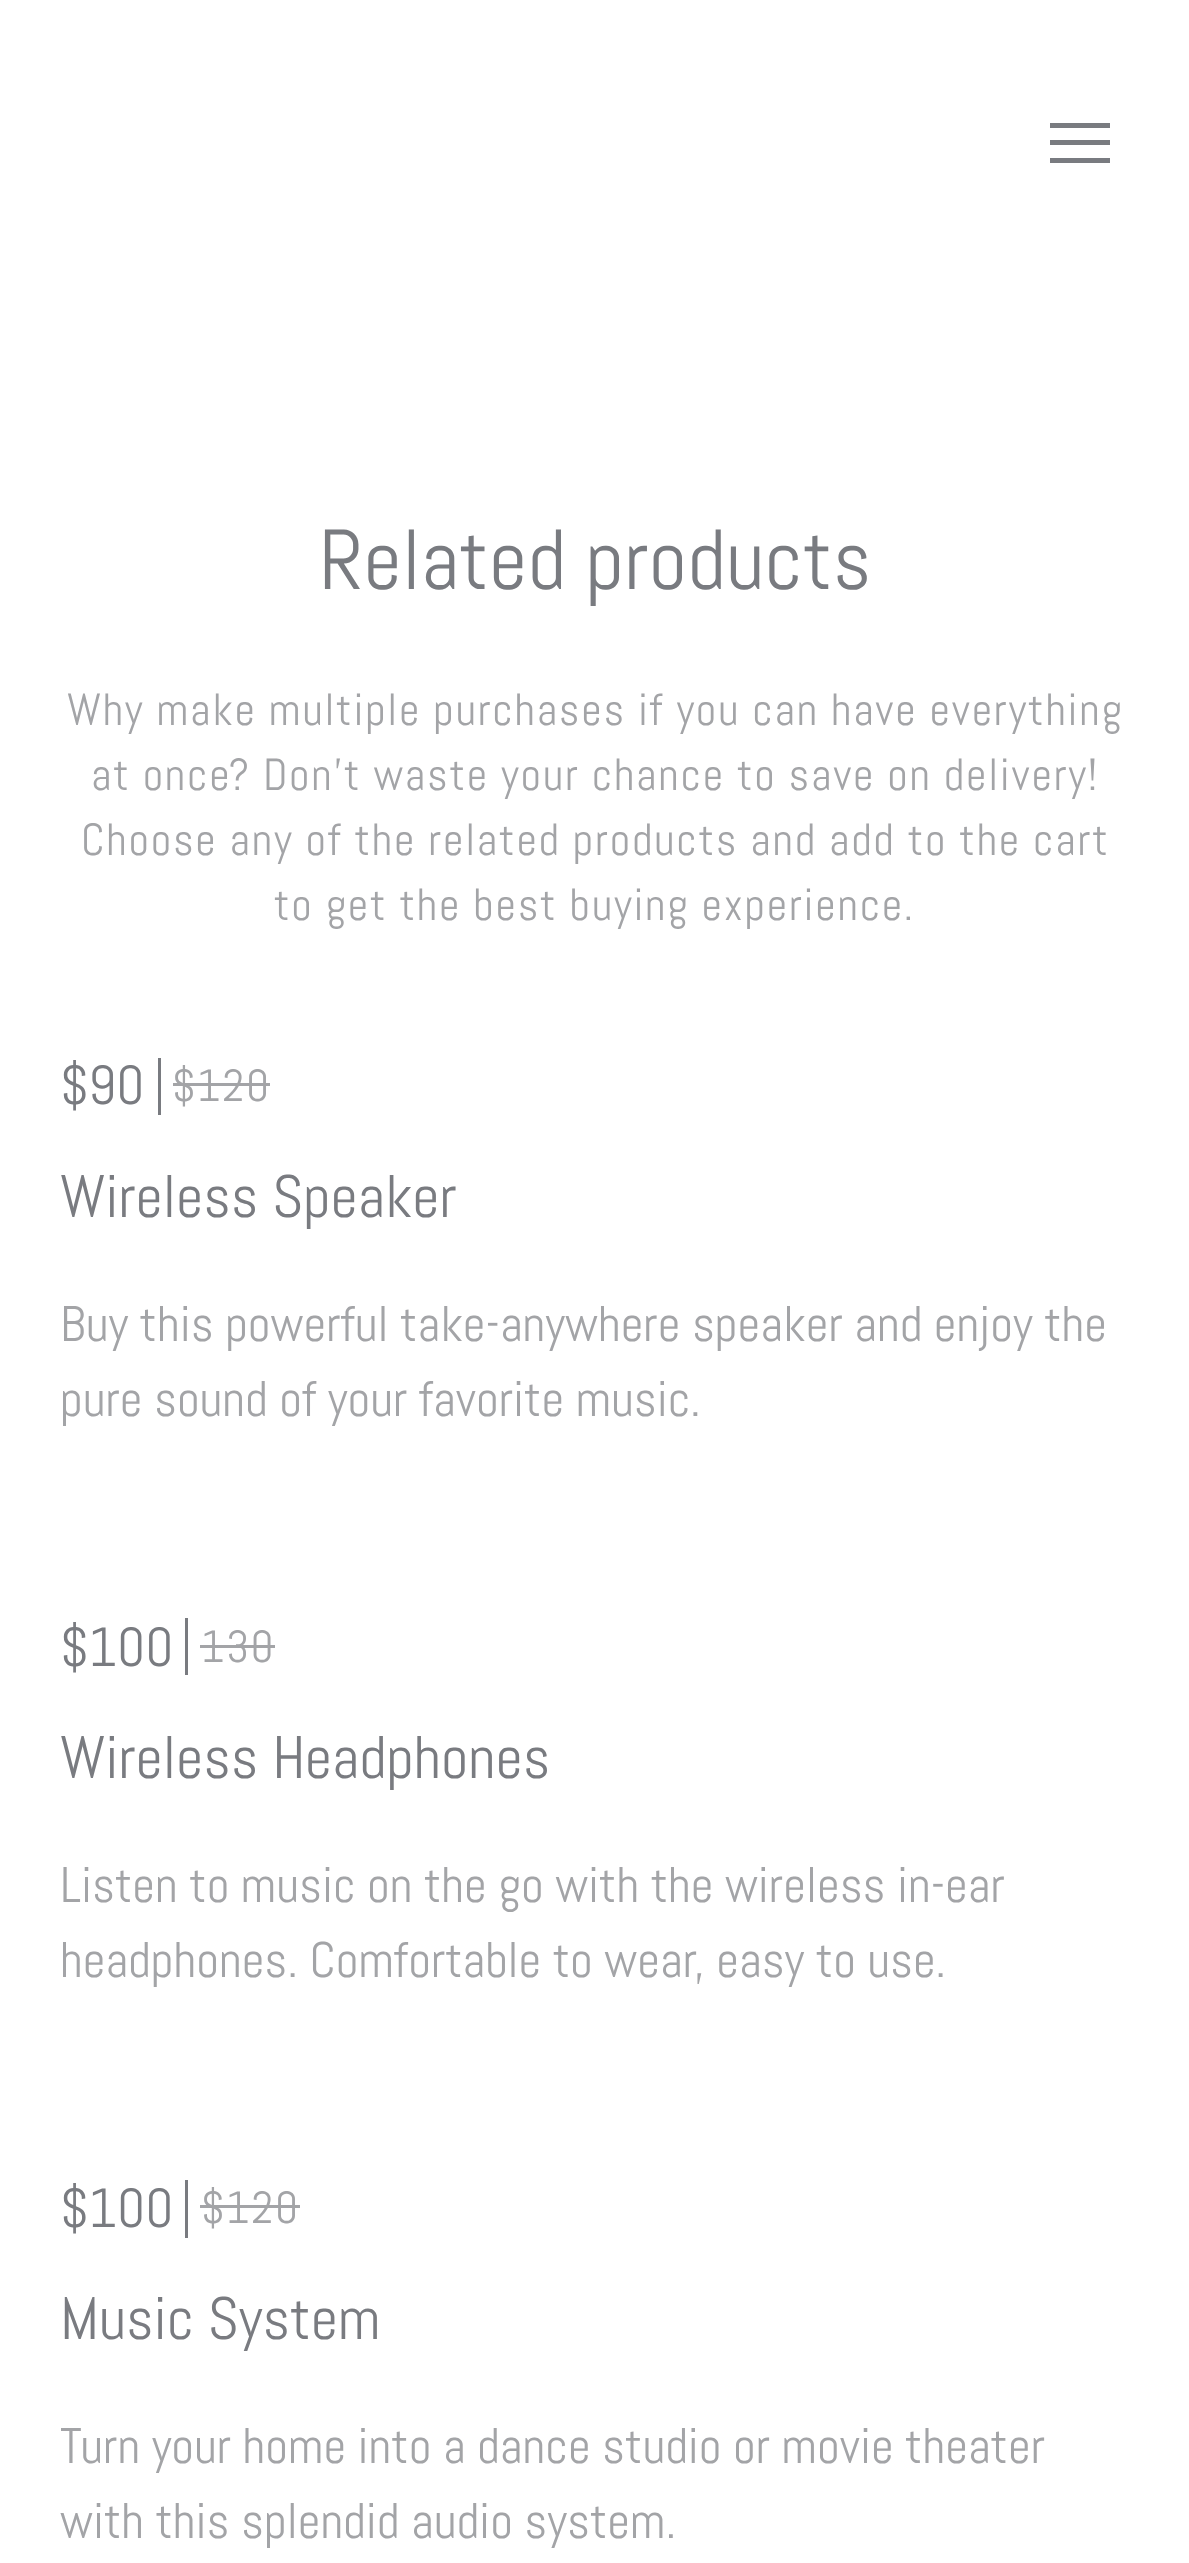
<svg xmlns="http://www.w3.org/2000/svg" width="1189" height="2563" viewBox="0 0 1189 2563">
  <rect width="100%" height="100%" fill="#fff"/>
  <path d="M1050 123h60v5H1050z" fill="#797b80"/>
  <path d="M1050 140h60v5H1050z" fill="#797b80"/>
  <path d="M1050 158h60v5H1050z" fill="#797b80"/>
  <path d="M158 1058h3v57H158z" fill="#797b80"/>
  <path d="M173 1083h97v3H173z" fill="#a3a4a7"/>
  <path d="M185 1618h3v57H185z" fill="#797b80"/>
  <path d="M200 1645h75v3H200z" fill="#a3a4a7"/>
  <path d="M185 2180h3v58H185z" fill="#797b80"/>
  <path d="M200 2205h100v3H200z" fill="#a3a4a7"/>
  <text x="319" y="589" font-family="Abel" font-size="85" fill="#797b80">Related products</text>
  <g font-family="Abel" font-size="45" letter-spacing="1.75" fill="#a3a4a7">
    <text x="67" y="725">Why make multiple purchases if you can have everything</text>
    <text x="91" y="790">at once? Don’t waste your chance to save on delivery!</text>
    <text x="81" y="855">Choose any of the related products and add to the cart</text>
    <text x="274" y="920">to get the best buying experience.</text>
  </g>
  <text x="60" y="1104" font-family="Abel" font-size="55" fill="#797b80">$90</text>
  <text x="172" y="1101" font-family="Abel" font-size="45" letter-spacing="1.75" fill="#a3a4a7">$120</text>
  <text x="60" y="1217" font-family="Abel" font-size="60" fill="#797b80">Wireless Speaker</text>
  <g font-family="Abel" font-size="50" fill="#a3a4a7">
    <text x="60" y="1341">Buy this powerful take-anywhere speaker and enjoy the</text>
    <text x="60" y="1416">pure sound of your favorite music.</text>
  </g>
  <text x="60" y="1666" font-family="Abel" font-size="55" fill="#797b80">$100</text>
  <text x="201" y="1662" font-family="Abel" font-size="45" letter-spacing="1.75" fill="#a3a4a7">130</text>
  <text x="60" y="1778" font-family="Abel" font-size="60" fill="#797b80">Wireless Headphones</text>
  <g font-family="Abel" font-size="50" fill="#a3a4a7">
    <text x="60" y="1902">Listen to music on the go with the wireless in-ear</text>
    <text x="60" y="1977">headphones. Comfortable to wear, easy to use.</text>
  </g>
  <text x="60" y="2227" font-family="Abel" font-size="55" fill="#797b80">$100</text>
  <text x="201" y="2223" font-family="Abel" font-size="45" letter-spacing="1.75" fill="#a3a4a7">$120</text>
  <text x="60" y="2339" font-family="Abel" font-size="60" fill="#797b80">Music System</text>
  <g font-family="Abel" font-size="50" fill="#a3a4a7">
    <text x="60" y="2463">Turn your home into a dance studio or movie theater</text>
    <text x="60" y="2538">with this splendid audio system.</text>
  </g>
</svg>
